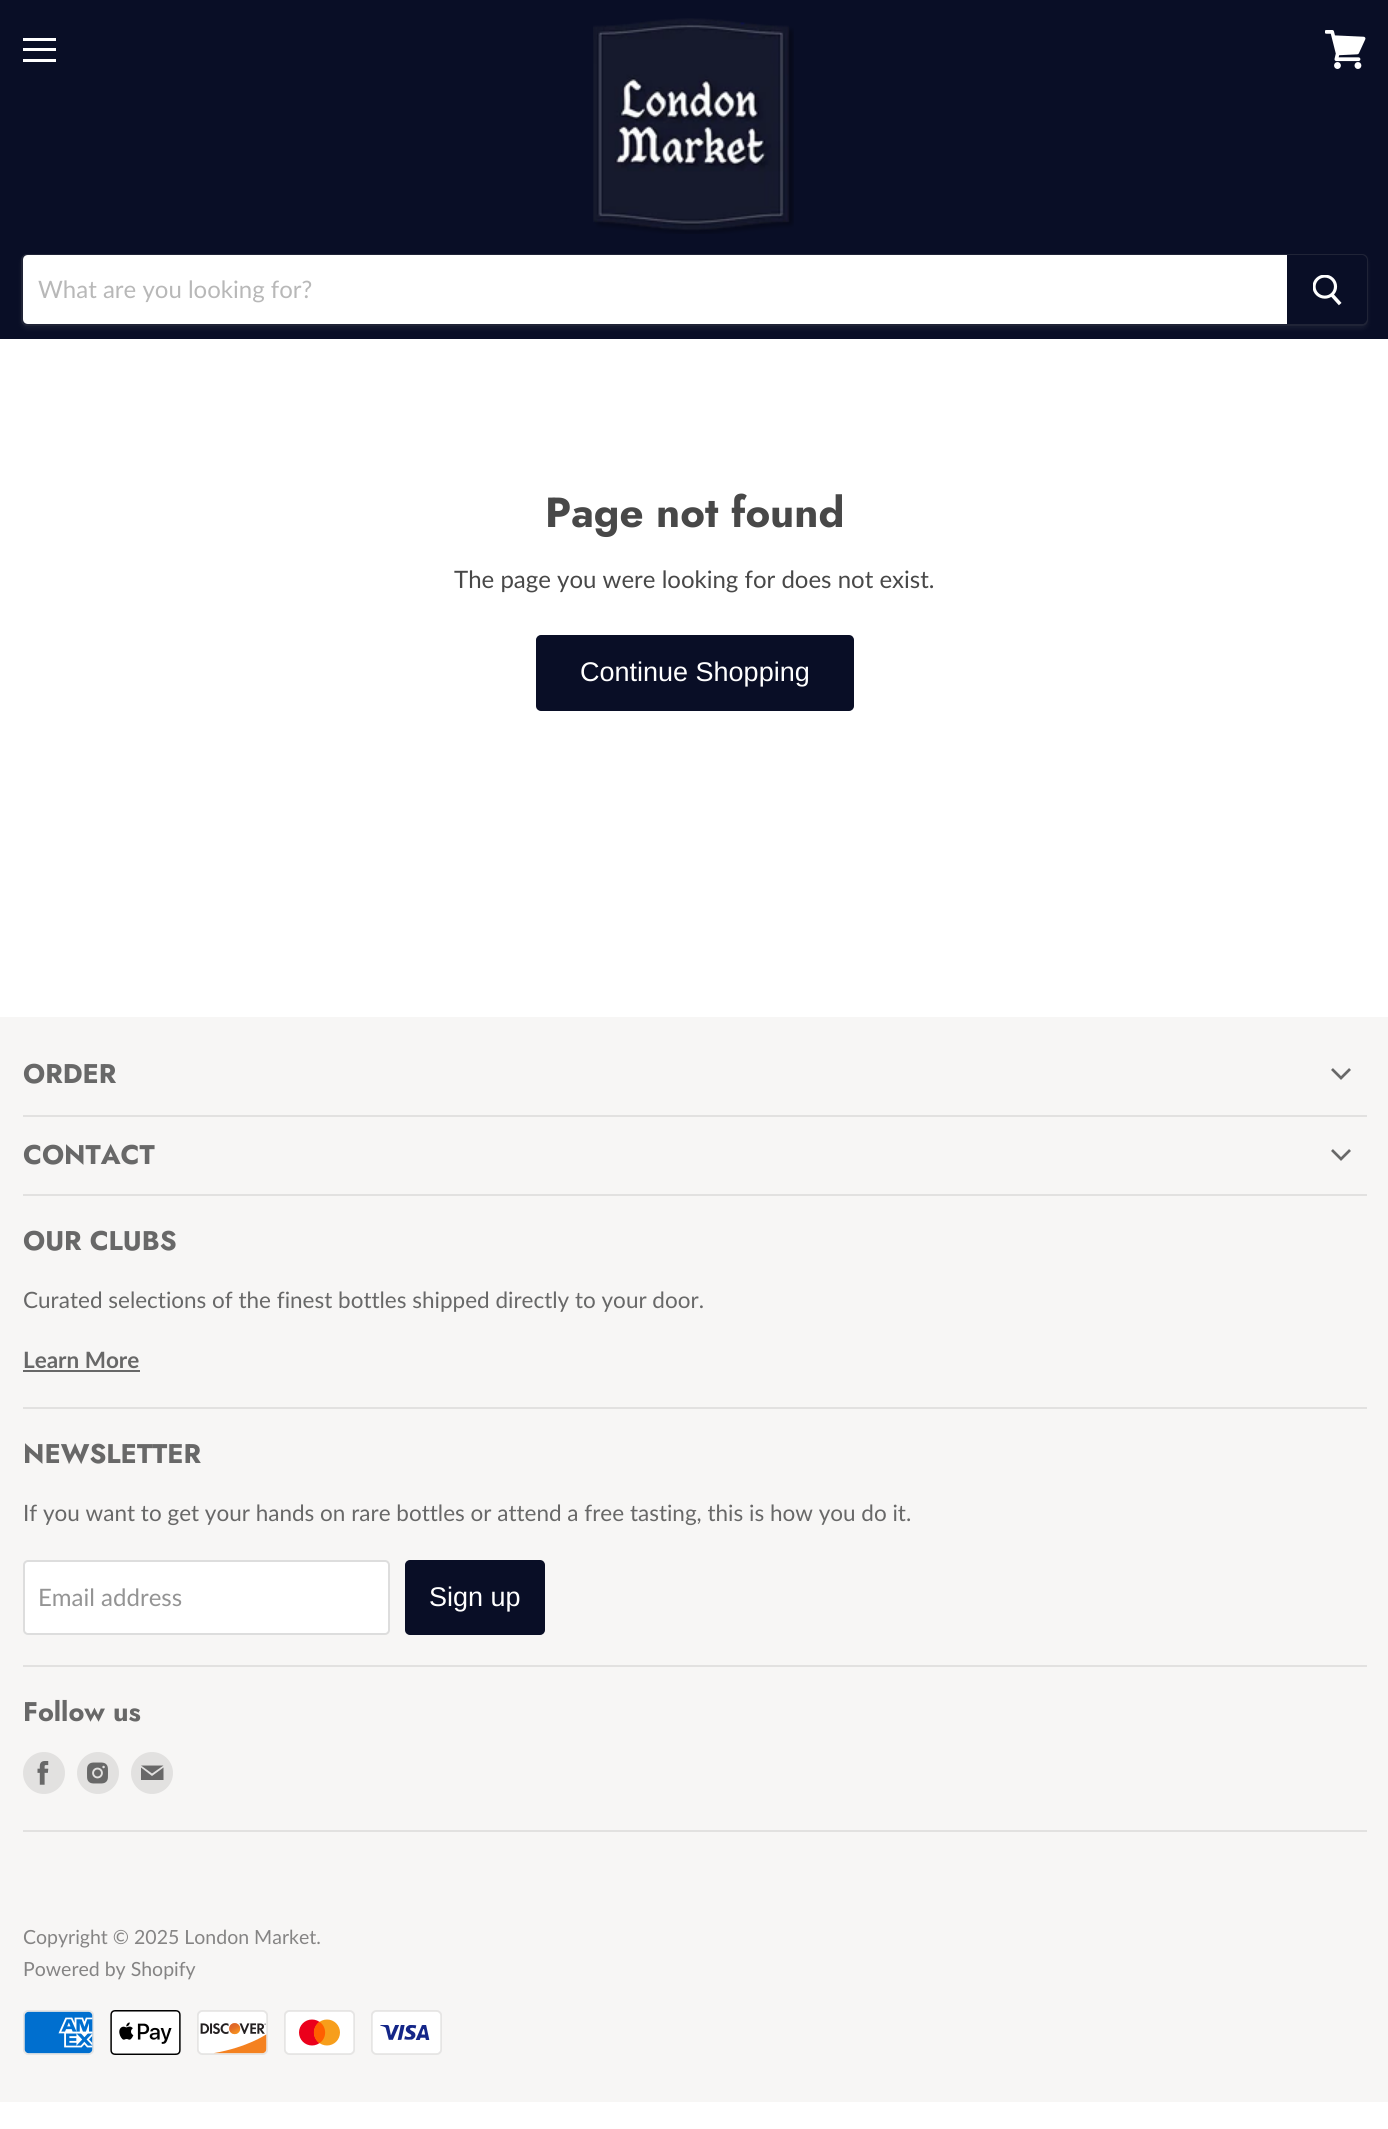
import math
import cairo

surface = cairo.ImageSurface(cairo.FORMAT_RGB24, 1388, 2129)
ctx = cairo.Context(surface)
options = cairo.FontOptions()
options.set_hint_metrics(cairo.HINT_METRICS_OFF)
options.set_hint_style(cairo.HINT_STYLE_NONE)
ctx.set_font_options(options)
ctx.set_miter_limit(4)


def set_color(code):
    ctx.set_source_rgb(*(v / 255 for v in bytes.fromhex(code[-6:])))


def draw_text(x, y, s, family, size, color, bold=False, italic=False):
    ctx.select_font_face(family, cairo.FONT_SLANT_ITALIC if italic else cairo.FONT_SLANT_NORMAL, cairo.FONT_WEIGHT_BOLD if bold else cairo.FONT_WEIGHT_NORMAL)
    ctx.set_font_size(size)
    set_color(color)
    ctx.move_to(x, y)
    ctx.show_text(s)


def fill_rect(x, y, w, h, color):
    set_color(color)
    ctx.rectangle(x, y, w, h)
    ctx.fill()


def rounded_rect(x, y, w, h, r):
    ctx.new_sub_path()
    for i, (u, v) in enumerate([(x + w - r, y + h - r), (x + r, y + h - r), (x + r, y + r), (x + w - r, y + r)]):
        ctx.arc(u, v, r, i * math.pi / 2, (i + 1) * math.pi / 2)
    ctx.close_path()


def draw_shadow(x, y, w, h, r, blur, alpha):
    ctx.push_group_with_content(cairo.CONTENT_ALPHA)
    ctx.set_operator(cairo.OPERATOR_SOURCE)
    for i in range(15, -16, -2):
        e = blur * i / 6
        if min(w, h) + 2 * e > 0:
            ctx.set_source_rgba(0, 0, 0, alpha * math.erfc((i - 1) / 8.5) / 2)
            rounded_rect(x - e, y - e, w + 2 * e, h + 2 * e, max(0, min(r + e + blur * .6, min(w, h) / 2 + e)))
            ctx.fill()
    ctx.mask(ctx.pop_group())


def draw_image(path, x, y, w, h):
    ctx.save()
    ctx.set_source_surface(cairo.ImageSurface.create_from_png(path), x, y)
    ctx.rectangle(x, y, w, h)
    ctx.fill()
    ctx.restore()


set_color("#ffffff")
ctx.paint()
fill_rect(0, 0, 1388, 339, "#090e26")
fill_rect(23, 38, 33, 3, "#ffffff")
fill_rect(23, 48, 33, 3, "#ffffff")
fill_rect(23, 59, 33, 3, "#ffffff")
draw_image("assets/img1.png", 1325, 30, 41, 39)
draw_image("assets/img2.png", 593, 18, 201, 216)
ctx.save()
ctx.set_fill_rule(cairo.FILL_RULE_EVEN_ODD)
ctx.new_path()
ctx.move_to(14, 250)
ctx.line_to(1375, 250)
ctx.line_to(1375, 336)
ctx.line_to(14, 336)
ctx.close_path()
ctx.move_to(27, 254)
ctx.line_to(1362, 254)
ctx.curve_to(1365.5, 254, 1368, 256.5, 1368, 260)
ctx.line_to(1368, 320)
ctx.curve_to(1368, 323.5, 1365.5, 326, 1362, 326)
ctx.line_to(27, 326)
ctx.curve_to(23.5, 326, 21, 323.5, 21, 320)
ctx.line_to(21, 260)
ctx.curve_to(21, 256.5, 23.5, 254, 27, 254)
ctx.close_path()
ctx.clip()
set_color("#7f7f7f")
draw_shadow(21, 257, 1347, 72, 6, 2, 0.11)
ctx.restore()
rounded_rect(22, 255, 1345, 70, 5)
ctx.set_source_rgba(0.498, 0.498, 0.498, 0.2)
ctx.stroke()
set_color("#ffffff")
ctx.new_path()
ctx.move_to(28, 255)
ctx.line_to(1287, 255)
ctx.line_to(1287, 324)
ctx.line_to(28, 324)
ctx.curve_to(25, 324, 23, 322, 23, 319)
ctx.line_to(23, 260)
ctx.curve_to(23, 257, 25, 255, 28, 255)
ctx.close_path()
ctx.fill()
draw_text(38, 298, "What are you looking for?", "Lato", 24, "#b8b8b8")
set_color("#090e26")
ctx.new_path()
ctx.move_to(1288, 256)
ctx.line_to(1362, 256)
ctx.curve_to(1364, 256, 1366, 258, 1366, 260)
ctx.line_to(1366, 319)
ctx.curve_to(1366, 321, 1364, 323, 1362, 323)
ctx.line_to(1288, 323)
ctx.close_path()
ctx.fill_preserve()
ctx.stroke()
draw_image("assets/img3.png", 1313, 275, 29, 31)
draw_text(545, 527, "Page not found", "Jost", 42, "#484848", bold=True)
draw_text(454, 588, "The page you were looking for does not exist.", "Lato", 24, "#484848")
set_color("#090e26")
rounded_rect(537, 636, 316, 74, 4)
ctx.fill_preserve()
ctx.stroke()
draw_text(580, 681, "Continue Shopping", "Liberation Sans", 27, "#ffffff")
fill_rect(0, 1017, 1388, 1085, "#f7f6f5")
fill_rect(23, 1115, 1344, 2, "#e2e1e0")
draw_text(23, 1083, "ORDER", "Jost", 27, "#686868", bold=True)
draw_image("assets/img4.png", 1331, 1068, 20, 12)
fill_rect(23, 1194, 1344, 2, "#e2e1e0")
draw_text(23, 1164, "CONTACT", "Jost", 27, "#686868", bold=True)
draw_image("assets/img4.png", 1331, 1149, 20, 12)
fill_rect(23, 1407, 1344, 2, "#e2e1e0")
draw_text(23, 1250, "OUR CLUBS", "Jost", 27, "#686868", bold=True)
draw_text(23, 1308, "Curated selections of the finest bottles shipped directly to your door.", "Lato", 22.5, "#686868")
draw_text(23, 1368, "Learn More", "Lato", 22.5, "#686868", bold=True)
fill_rect(23, 1370, 117, 2, "#686868")
fill_rect(23, 1665, 1344, 2, "#e2e1e0")
draw_text(23, 1463, "NEWSLETTER", "Jost", 27, "#686868", bold=True)
draw_text(23, 1521, "If you want to get your hands on rare bottles or attend a free tasting, this is how you do it.", "Lato", 22.5, "#686868")
set_color("#ffffff")
rounded_rect(24, 1561, 365, 73, 4)
ctx.fill_preserve()
set_color("#dddddd")
ctx.stroke()
draw_text(38, 1606, "Email address", "Lato", 24, "#949494")
set_color("#090e26")
rounded_rect(406, 1561, 138, 73, 4)
ctx.fill_preserve()
ctx.stroke()
draw_text(429, 1606, "Sign up", "Liberation Sans", 27, "#ffffff")
fill_rect(23, 1830, 1344, 2, "#e2e1e0")
draw_text(23, 1721, "Follow us", "Jost", 27, "#686868", bold=True)
set_color("#e2e1e0")
ctx.new_path()
ctx.arc(44, 1773, 21, 0, 2 * math.pi)
ctx.fill()
draw_image("assets/img5.png", 37, 1761, 12, 24)
ctx.arc(98, 1773, 21, 0, 2 * math.pi)
ctx.fill()
draw_image("assets/img6.png", 87, 1762, 21, 22)
ctx.arc(152, 1773, 21, 0, 2 * math.pi)
ctx.fill()
set_color("#686868")
ctx.set_fill_rule(cairo.FILL_RULE_EVEN_ODD)
ctx.new_path()
ctx.move_to(163.5, 1765.5)
ctx.line_to(141, 1765.5)
ctx.line_to(152, 1773.5)
ctx.close_path()
ctx.move_to(152, 1776)
ctx.line_to(141, 1767.5)
ctx.line_to(141, 1780)
ctx.line_to(163.5, 1780)
ctx.line_to(163.5, 1767.5)
ctx.close_path()
ctx.fill()
draw_text(23, 1944, "Copyright © 2025 London Market.", "Lato", 19.5, "#858484")
draw_text(23, 1976, "Powered by Shopify", "Lato", 19.5, "#858484")
draw_image("assets/img7.png", 23, 2010, 71, 45)
draw_image("assets/img8.png", 110, 2010, 71, 45)
draw_image("assets/img9.png", 197, 2010, 71, 45)
draw_image("assets/img10.png", 284, 2010, 71, 45)
draw_image("assets/img11.png", 371, 2010, 71, 45)
surface.write_to_png("output.png")
